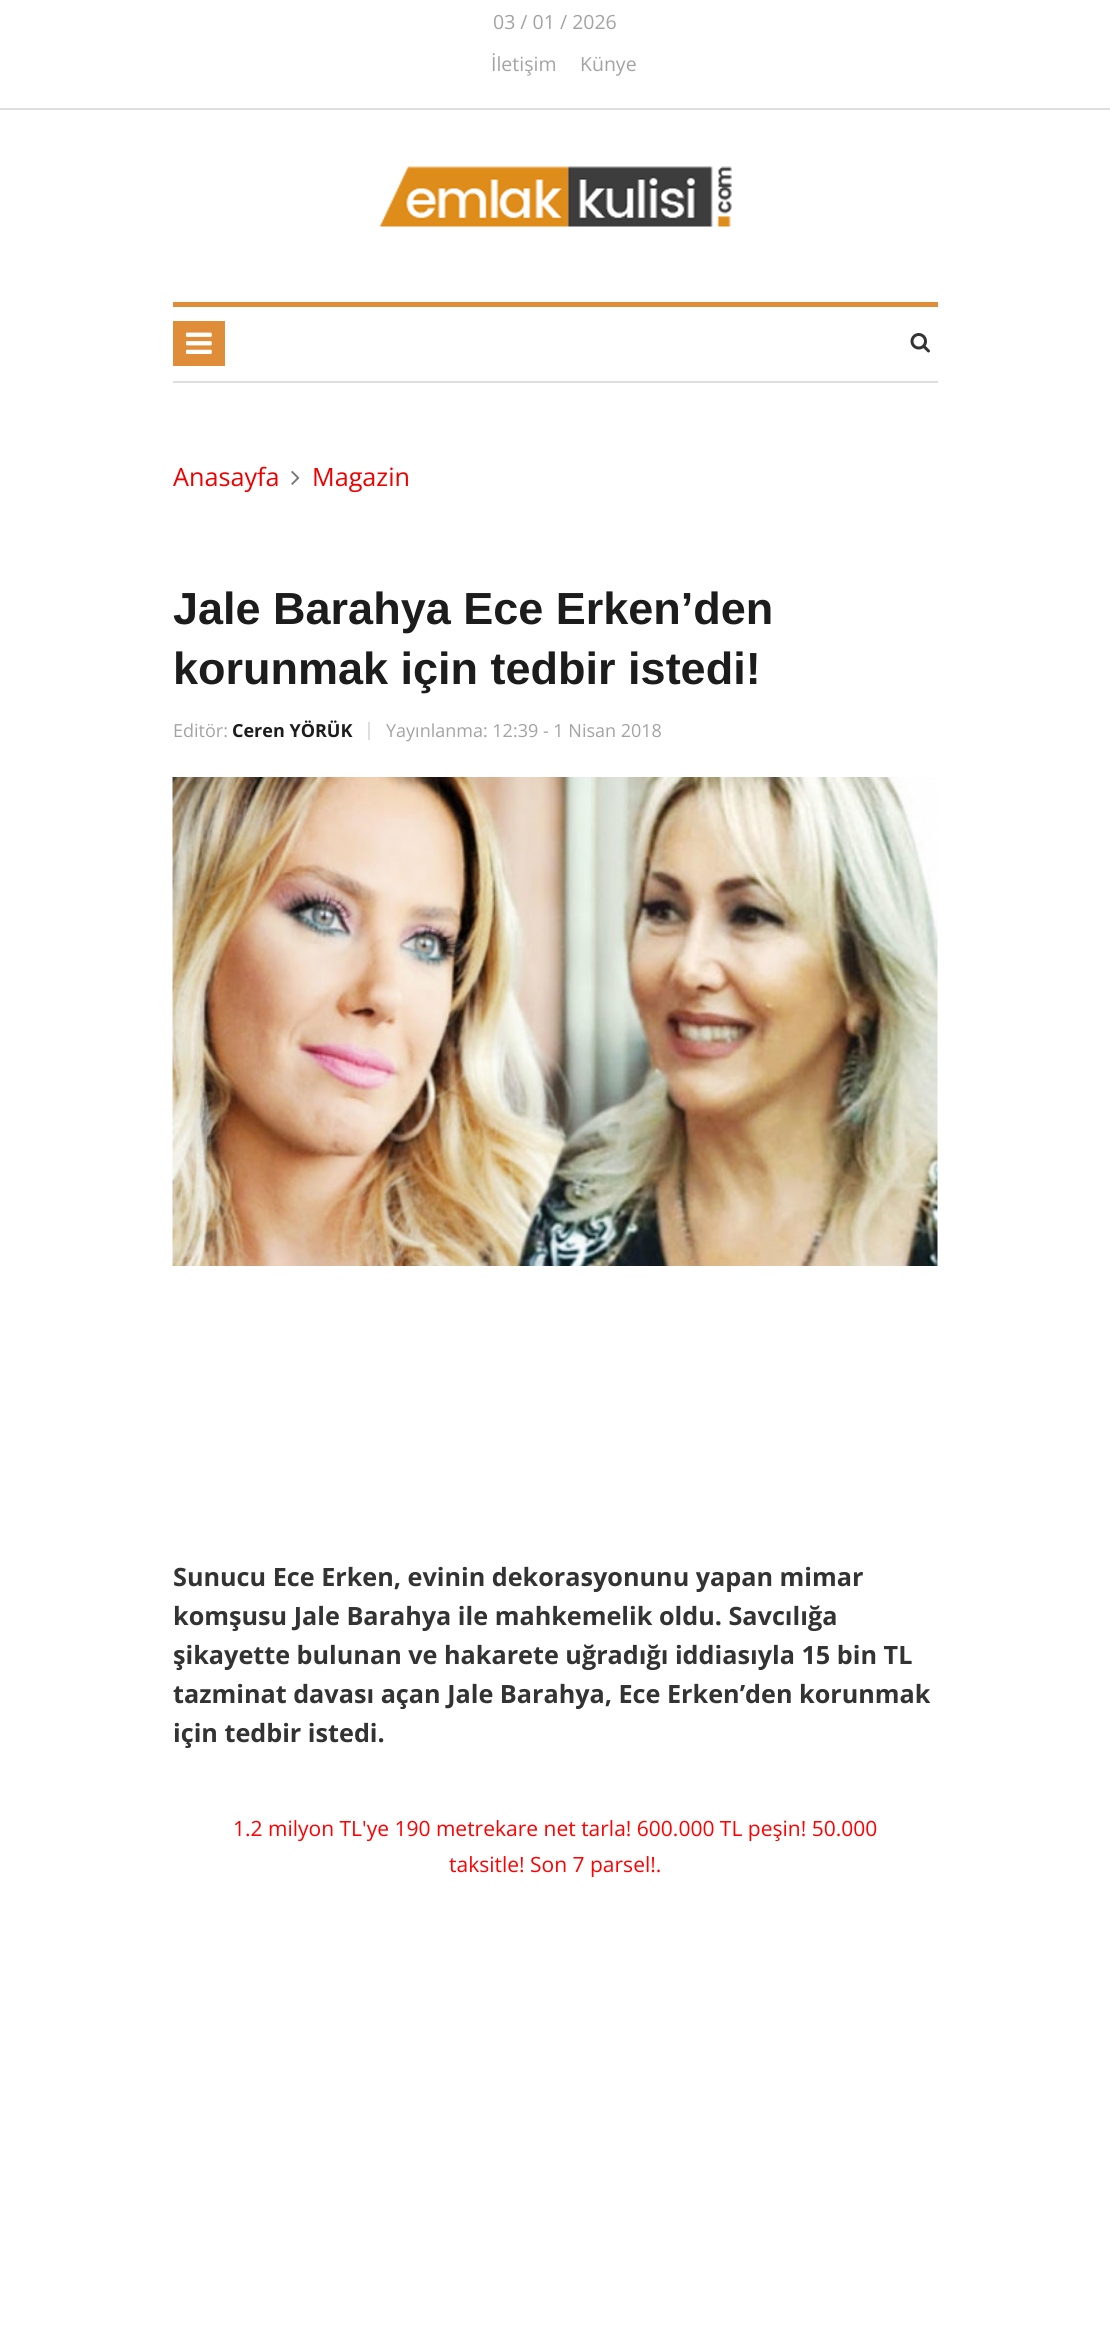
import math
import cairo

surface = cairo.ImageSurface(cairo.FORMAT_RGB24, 1110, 2352)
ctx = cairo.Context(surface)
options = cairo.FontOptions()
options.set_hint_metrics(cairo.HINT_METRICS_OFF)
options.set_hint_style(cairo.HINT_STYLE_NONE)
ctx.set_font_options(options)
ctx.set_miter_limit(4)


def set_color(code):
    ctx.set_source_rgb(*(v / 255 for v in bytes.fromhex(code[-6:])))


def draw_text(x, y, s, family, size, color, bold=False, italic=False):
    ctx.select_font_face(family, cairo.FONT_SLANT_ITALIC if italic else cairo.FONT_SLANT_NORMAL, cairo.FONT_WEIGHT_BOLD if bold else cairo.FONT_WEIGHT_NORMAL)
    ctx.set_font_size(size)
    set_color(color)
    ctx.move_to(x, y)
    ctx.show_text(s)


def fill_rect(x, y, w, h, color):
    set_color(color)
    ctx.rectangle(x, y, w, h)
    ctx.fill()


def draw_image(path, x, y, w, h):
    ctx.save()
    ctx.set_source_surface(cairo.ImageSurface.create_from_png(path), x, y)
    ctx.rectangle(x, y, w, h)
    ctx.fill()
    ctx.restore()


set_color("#ffffff")
ctx.paint()
fill_rect(0, 108, 1110, 2, "#dedede")
draw_text(493, 29, "03 / 01 / 2026", "Open Sans", 19.5, "#a3a3a3")
draw_text(491, 71, "İletişim", "Open Sans", 19.5, "#a3a3a3")
draw_text(580, 71, "Künye", "Open Sans", 19.5, "#a3a3a3")
draw_image("assets/img1.png", 379, 166, 353, 61)
fill_rect(173, 302, 765, 5, "#df8d38")
fill_rect(173, 381, 765, 2, "#dedede")
fill_rect(173, 321, 52, 45, "#df8d38")
draw_image("assets/img2.png", 186, 332, 26, 22)
draw_image("assets/img3.png", 910, 333, 20, 20)
draw_text(173, 486, "Anasayfa", "Open Sans", 25.2, "#ec0000")
draw_image("assets/img4.png", 291, 470, 9, 15)
draw_text(312, 486, "Magazin", "Open Sans", 25.2, "#ec0000")
draw_text(173, 624, "Jale Barahya Ece Erken’den", "Liberation Sans", 45, "#1c1c1c", bold=True)
draw_text(173, 684, "korunmak için tedbir istedi!", "Liberation Sans", 45, "#1c1c1c", bold=True)
fill_rect(368, 722, 2, 18, "#dedede")
draw_text(173, 737, "Editör:", "Open Sans", 18, "#a3a3a3")
draw_text(232, 737, "Ceren YÖRÜK", "Open Sans", 18, "#1c1c1c", bold=True)
draw_text(386, 737, "Yayınlanma: 12:39 - 1 Nisan 2018", "Open Sans", 18, "#a3a3a3")
draw_image("assets/img5.png", 172, 777, 766, 489)
draw_text(173, 1586, "Sunucu Ece Erken, evinin dekorasyonunu yapan mimar", "Open Sans", 25.2, "#333333", bold=True)
draw_text(173, 1625, "komşusu Jale Barahya ile mahkemelik oldu. Savcılığa", "Open Sans", 25.2, "#333333", bold=True)
draw_text(173, 1664, "şikayette bulunan ve hakarete uğradığı iddiasıyla 15 bin TL", "Open Sans", 25.2, "#333333", bold=True)
draw_text(173, 1703, "tazminat davası açan Jale Barahya, Ece Erken’den korunmak", "Open Sans", 25.2, "#333333", bold=True)
draw_text(173, 1742, "için tedbir istedi.", "Open Sans", 25.2, "#333333", bold=True)
draw_text(233, 1836, "1.2 milyon TL'ye 190 metrekare net tarla! 600.000 TL peşin! 50.000", "Open Sans", 21, "#ff0000")
draw_text(449, 1872, "taksitle! Son 7 parsel!.", "Open Sans", 21, "#ff0000")
surface.write_to_png("output.png")
